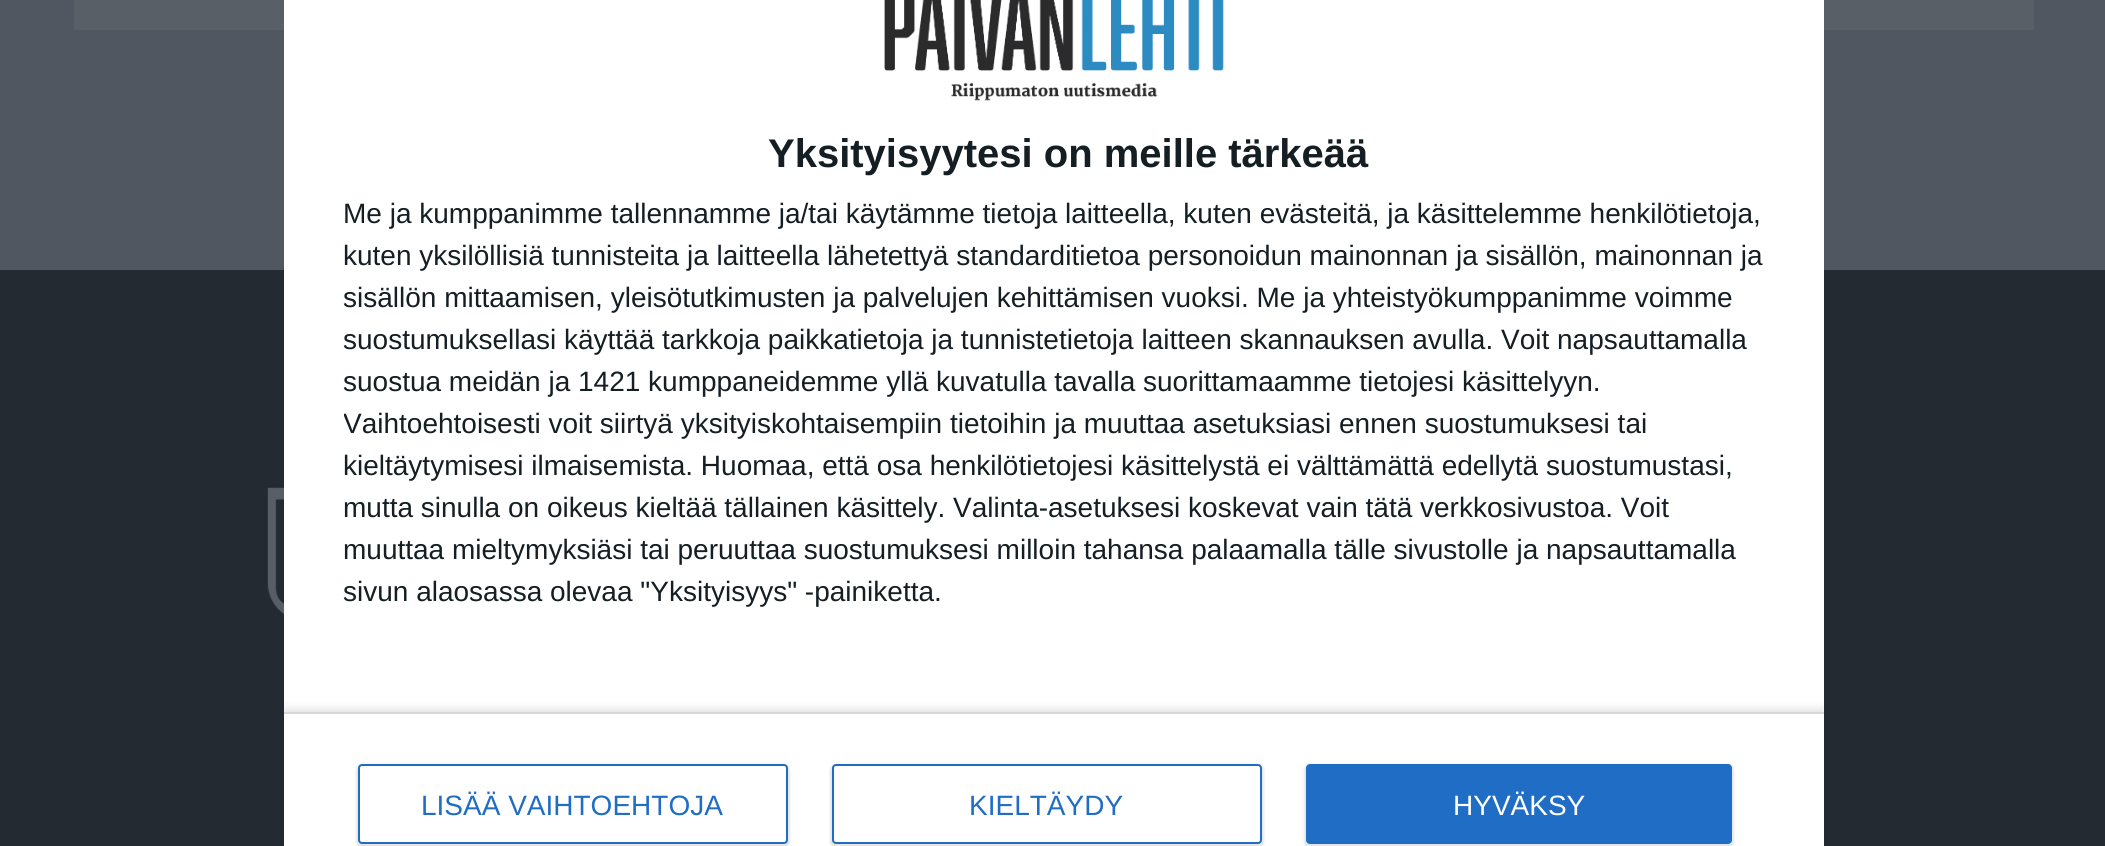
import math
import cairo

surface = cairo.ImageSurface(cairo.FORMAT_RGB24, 2105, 846)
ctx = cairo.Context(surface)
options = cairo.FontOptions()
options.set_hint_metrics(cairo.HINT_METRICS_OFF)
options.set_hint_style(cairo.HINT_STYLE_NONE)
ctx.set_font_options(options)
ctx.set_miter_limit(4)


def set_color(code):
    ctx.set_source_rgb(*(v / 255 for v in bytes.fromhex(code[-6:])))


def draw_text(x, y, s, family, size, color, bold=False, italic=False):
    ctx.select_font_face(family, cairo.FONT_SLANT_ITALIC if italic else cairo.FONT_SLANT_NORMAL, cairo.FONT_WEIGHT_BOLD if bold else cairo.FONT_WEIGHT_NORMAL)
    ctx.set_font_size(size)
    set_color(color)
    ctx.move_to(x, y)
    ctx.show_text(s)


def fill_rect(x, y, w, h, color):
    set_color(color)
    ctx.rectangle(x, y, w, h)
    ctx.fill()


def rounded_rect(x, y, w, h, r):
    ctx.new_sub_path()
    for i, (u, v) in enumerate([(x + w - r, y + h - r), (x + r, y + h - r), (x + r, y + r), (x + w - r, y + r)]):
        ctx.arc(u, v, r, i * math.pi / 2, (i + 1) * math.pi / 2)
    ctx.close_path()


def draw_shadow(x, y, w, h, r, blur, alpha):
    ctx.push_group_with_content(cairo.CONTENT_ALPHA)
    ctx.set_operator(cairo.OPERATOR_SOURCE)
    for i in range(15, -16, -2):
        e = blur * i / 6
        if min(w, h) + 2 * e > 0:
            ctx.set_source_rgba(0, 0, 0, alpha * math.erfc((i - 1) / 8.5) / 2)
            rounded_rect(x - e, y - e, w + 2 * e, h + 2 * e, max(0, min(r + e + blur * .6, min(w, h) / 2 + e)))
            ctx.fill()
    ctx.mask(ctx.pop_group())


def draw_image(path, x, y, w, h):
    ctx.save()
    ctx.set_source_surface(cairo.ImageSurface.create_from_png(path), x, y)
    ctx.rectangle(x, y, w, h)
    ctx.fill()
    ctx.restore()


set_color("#505760")
ctx.paint()
fill_rect(74, 0, 1960, 30, "#595f67")
fill_rect(0, 270, 2105, 576, "#242a32")
draw_image("assets/img1.png", 267, 487, 17, 128)
fill_rect(284, 0, 1540, 846, "#ffffff")
draw_image("assets/img2.png", 884, 0, 340, 101)
draw_text(768, 167, "Yksityisyytesi on meille tärkeää", "Liberation Sans", 40, "#141e23", bold=True)
draw_text(343, 223, "Me ja kumppanimme tallennamme ja/tai käytämme tietoja laitteella, kuten evästeitä, ja käsittelemme henkilötietoja,", "Liberation Sans", 28, "#141e23")
draw_text(343, 265, "kuten yksilöllisiä tunnisteita ja laitteella lähetettyä standarditietoa personoidun mainonnan ja sisällön, mainonnan ja", "Liberation Sans", 28, "#141e23")
draw_text(343, 307, "sisällön mittaamisen, yleisötutkimusten ja palvelujen kehittämisen vuoksi. Me ja yhteistyökumppanimme voimme", "Liberation Sans", 28, "#141e23")
draw_text(343, 349, "suostumuksellasi käyttää tarkkoja paikkatietoja ja tunnistetietoja laitteen skannauksen avulla. Voit napsauttamalla", "Liberation Sans", 28, "#141e23")
draw_text(343, 391, "suostua meidän ja 1421 kumppaneidemme yllä kuvatulla tavalla suorittamaamme tietojesi käsittelyyn.", "Liberation Sans", 28, "#141e23")
ctx.save()
ctx.rectangle(344, 192, 1420, 420)
ctx.clip()
draw_text(343, 433, "Vaihtoehtoisesti voit siirtyä yksityiskohtaisempiin tietoihin ja muuttaa asetuksiasi ennen suostumuksesi tai", "Liberation Sans", 28, "#141e23")
ctx.restore()
draw_text(343, 475, "kieltäytymisesi ilmaisemista. Huomaa, että osa henkilötietojesi käsittelystä ei välttämättä edellytä suostumustasi,", "Liberation Sans", 28, "#141e23")
draw_text(343, 517, "mutta sinulla on oikeus kieltää tällainen käsittely. Valinta-asetuksesi koskevat vain tätä verkkosivustoa. Voit", "Liberation Sans", 28, "#141e23")
draw_text(343, 559, "muuttaa mieltymyksiäsi tai peruuttaa suostumuksesi milloin tahansa palaamalla tälle sivustolle ja napsauttamalla", "Liberation Sans", 28, "#141e23")
draw_text(343, 601, "sivun alaosassa olevaa \"Yksityisyys\" -painiketta.", "Liberation Sans", 28, "#141e23")
ctx.save()
ctx.set_fill_rule(cairo.FILL_RULE_EVEN_ODD)
ctx.new_path()
ctx.move_to(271, 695)
ctx.line_to(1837, 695)
ctx.line_to(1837, 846)
ctx.line_to(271, 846)
ctx.close_path()
ctx.move_to(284, 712)
ctx.line_to(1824, 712)
ctx.line_to(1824, 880)
ctx.line_to(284, 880)
ctx.close_path()
ctx.clip()
set_color("#000000")
draw_shadow(284, 708, 1540, 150, 0, 4, 0.1)
ctx.restore()
fill_rect(284, 712, 1540, 2, "#d8d8d8")
set_color("#000000")
draw_shadow(356, 764, 434, 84, 6, 1, 0.1)
set_color("#ffffff")
rounded_rect(359, 765, 428, 78, 3)
ctx.fill_preserve()
set_color("#206dc5")
ctx.stroke()
draw_text(421, 815, "LISÄÄ VAIHTOEHTOJA", "Liberation Sans", 28, "#206dc5")
set_color("#000000")
draw_shadow(830, 764, 434, 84, 6, 1, 0.1)
set_color("#ffffff")
rounded_rect(833, 765, 428, 78, 3)
ctx.fill_preserve()
set_color("#206dc5")
ctx.stroke()
draw_text(969, 815, "KIELTÄYDY", "Liberation Sans", 28, "#206dc5")
set_color("#000000")
draw_shadow(1304, 764, 430, 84, 6, 1, 0.1)
set_color("#206dc5")
rounded_rect(1306, 764, 426, 80, 4)
ctx.fill()
draw_text(1453, 815, "HYVÄKSY", "Liberation Sans", 28, "#ffffff")
surface.write_to_png("output.png")
